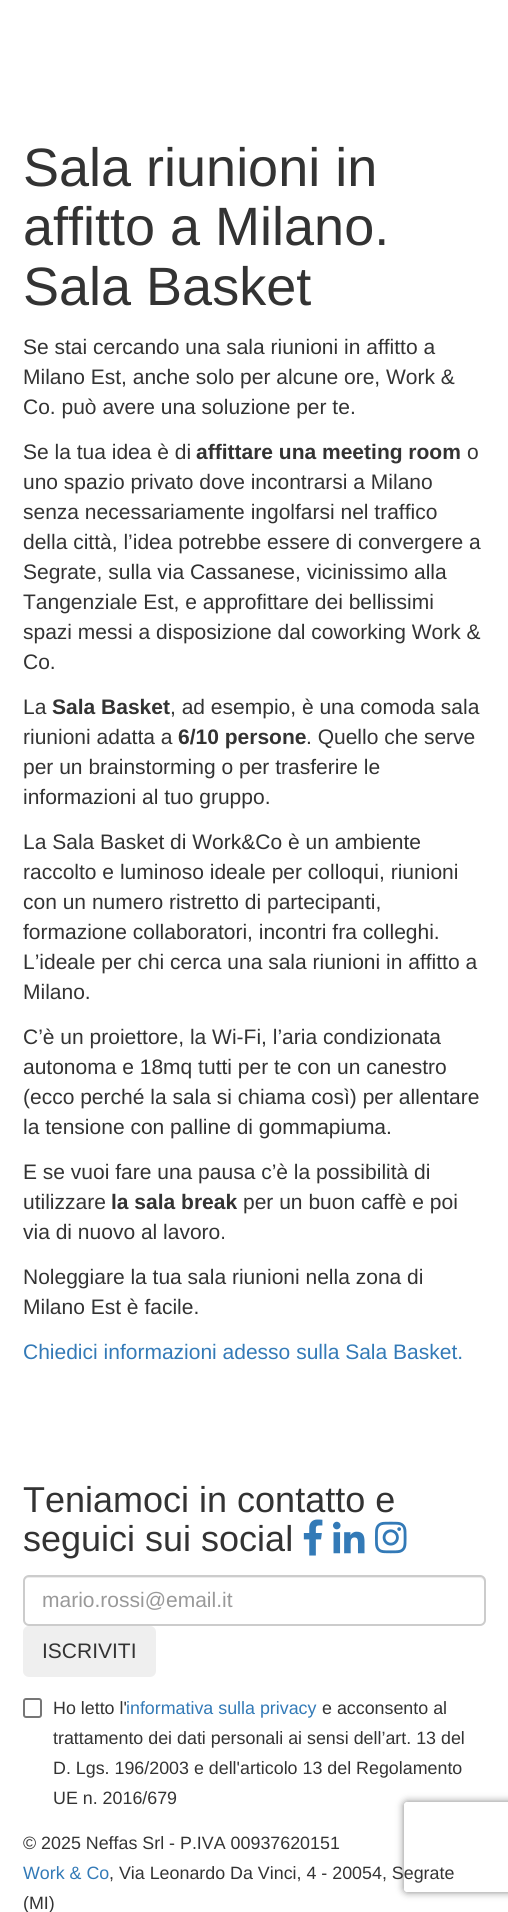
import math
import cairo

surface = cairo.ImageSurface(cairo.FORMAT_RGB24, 508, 1912)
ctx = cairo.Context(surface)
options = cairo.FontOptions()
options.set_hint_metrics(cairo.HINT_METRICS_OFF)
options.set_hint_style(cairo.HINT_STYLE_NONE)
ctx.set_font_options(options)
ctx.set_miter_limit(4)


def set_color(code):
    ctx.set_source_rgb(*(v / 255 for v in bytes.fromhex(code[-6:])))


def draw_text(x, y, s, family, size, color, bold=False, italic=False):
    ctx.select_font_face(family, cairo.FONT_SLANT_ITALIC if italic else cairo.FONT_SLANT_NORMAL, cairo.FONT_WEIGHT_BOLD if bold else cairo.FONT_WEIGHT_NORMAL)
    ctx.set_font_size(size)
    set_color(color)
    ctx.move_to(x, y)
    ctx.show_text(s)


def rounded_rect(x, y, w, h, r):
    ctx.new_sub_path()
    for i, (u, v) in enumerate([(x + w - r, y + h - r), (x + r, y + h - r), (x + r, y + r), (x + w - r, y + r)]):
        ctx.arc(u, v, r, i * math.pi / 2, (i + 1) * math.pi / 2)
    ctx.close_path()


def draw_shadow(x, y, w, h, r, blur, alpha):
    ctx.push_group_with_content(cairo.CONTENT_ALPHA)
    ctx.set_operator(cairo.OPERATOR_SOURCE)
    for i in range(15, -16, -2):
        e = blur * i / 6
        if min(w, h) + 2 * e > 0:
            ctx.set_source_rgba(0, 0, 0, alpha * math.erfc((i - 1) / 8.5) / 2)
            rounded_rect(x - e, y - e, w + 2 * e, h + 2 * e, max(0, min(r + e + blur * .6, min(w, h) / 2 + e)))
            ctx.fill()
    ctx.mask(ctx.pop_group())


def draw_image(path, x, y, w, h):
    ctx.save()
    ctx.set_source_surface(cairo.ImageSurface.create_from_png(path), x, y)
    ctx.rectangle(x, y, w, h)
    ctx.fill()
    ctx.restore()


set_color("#ffffff")
ctx.paint()
draw_text(23, 186, "Sala riunioni in", "Liberation Sans", 54, "#333333")
draw_text(23, 245, "affitto a Milano.", "Liberation Sans", 54, "#333333")
draw_text(23, 305, "Sala Basket", "Liberation Sans", 54, "#333333")
draw_text(23, 354, "Se stai cercando una sala riunioni in affitto a", "Liberation Sans", 21, "#333333")
draw_text(23, 384, "Milano Est, anche solo per alcune ore, Work &", "Liberation Sans", 21, "#333333")
draw_text(23, 414, "Co. può avere una soluzione per te.", "Liberation Sans", 21, "#333333")
draw_text(23, 459, "Se la tua idea è di", "Liberation Sans", 21, "#333333")
draw_text(196, 459, "affittare una meeting room", "Liberation Sans", 21, "#333333", bold=True)
draw_text(467, 459, "o", "Liberation Sans", 21, "#333333")
draw_text(23, 489, "uno spazio privato dove incontrarsi a Milano", "Liberation Sans", 21, "#333333")
draw_text(23, 519, "senza necessariamente ingolfarsi nel traffico", "Liberation Sans", 21, "#333333")
draw_text(23, 549, "della città, l’idea potrebbe essere di convergere a", "Liberation Sans", 21, "#333333")
draw_text(23, 579, "Segrate, sulla via Cassanese, vicinissimo alla", "Liberation Sans", 21, "#333333")
draw_text(23, 609, "Tangenziale Est, e approfittare dei bellissimi", "Liberation Sans", 21, "#333333")
draw_text(23, 639, "spazi messi a disposizione dal coworking Work &", "Liberation Sans", 21, "#333333")
draw_text(23, 669, "Co.", "Liberation Sans", 21, "#333333")
draw_text(23, 714, "La", "Liberation Sans", 21, "#333333")
draw_text(52, 714, "Sala Basket", "Liberation Sans", 21, "#333333", bold=True)
draw_text(170, 714, ", ad esempio, è una comoda sala", "Liberation Sans", 21, "#333333")
draw_text(23, 744, "riunioni adatta a", "Liberation Sans", 21, "#333333")
draw_text(178, 744, "6/10 persone", "Liberation Sans", 21, "#333333", bold=True)
draw_text(306, 744, ". Quello che serve", "Liberation Sans", 21, "#333333")
draw_text(23, 774, "per un brainstorming o per trasferire le", "Liberation Sans", 21, "#333333")
draw_text(23, 804, "informazioni al tuo gruppo.", "Liberation Sans", 21, "#333333")
draw_text(23, 849, "La Sala Basket di Work&Co è un ambiente", "Liberation Sans", 21, "#333333")
draw_text(23, 879, "raccolto e luminoso ideale per colloqui, riunioni", "Liberation Sans", 21, "#333333")
draw_text(23, 909, "con un numero ristretto di partecipanti,", "Liberation Sans", 21, "#333333")
draw_text(23, 939, "formazione collaboratori, incontri fra colleghi.", "Liberation Sans", 21, "#333333")
draw_text(23, 969, "L’ideale per chi cerca una sala riunioni in affitto a", "Liberation Sans", 21, "#333333")
draw_text(23, 999, "Milano.", "Liberation Sans", 21, "#333333")
draw_text(23, 1044, "C’è un proiettore, la Wi-Fi, l’aria condizionata", "Liberation Sans", 21, "#333333")
draw_text(23, 1074, "autonoma e 18mq tutti per te con un canestro", "Liberation Sans", 21, "#333333")
draw_text(23, 1104, "(ecco perché la sala si chiama così) per allentare", "Liberation Sans", 21, "#333333")
draw_text(23, 1134, "la tensione con palline di gommapiuma.", "Liberation Sans", 21, "#333333")
draw_text(23, 1179, "E se vuoi fare una pausa c’è la possibilità di", "Liberation Sans", 21, "#333333")
draw_text(23, 1209, "utilizzare", "Liberation Sans", 21, "#333333")
draw_text(111, 1209, "la sala break", "Liberation Sans", 21, "#333333", bold=True)
draw_text(243, 1209, "per un buon caffè e poi", "Liberation Sans", 21, "#333333")
draw_text(23, 1239, "via di nuovo al lavoro.", "Liberation Sans", 21, "#333333")
draw_text(23, 1284, "Noleggiare la tua sala riunioni nella zona di", "Liberation Sans", 21, "#333333")
draw_text(23, 1314, "Milano Est è facile.", "Liberation Sans", 21, "#333333")
draw_text(23, 1359, "Chiedici informazioni adesso sulla Sala Basket.", "Liberation Sans", 21, "#337ab7")
draw_text(23, 1512, "Teniamoci in contatto e", "Liberation Sans", 36, "#333333")
draw_text(23, 1551, "seguici sui social", "Liberation Sans", 36, "#333333")
draw_image("assets/img1.png", 303, 1519, 20, 37)
draw_image("assets/img2.png", 333, 1521, 32, 33)
draw_image("assets/img3.png", 375, 1521, 32, 33)
set_color("#ececec")
ctx.new_path()
ctx.move_to(28, 1578)
ctx.line_to(480, 1578)
ctx.curve_to(482, 1578, 484, 1580, 484, 1582)
ctx.line_to(484, 1623)
ctx.curve_to(485, 1622, 485, 1621, 485, 1620)
ctx.line_to(485, 1582)
ctx.curve_to(485, 1579, 483, 1577, 480, 1577)
ctx.line_to(29, 1577)
ctx.curve_to(26, 1577, 24, 1579, 24, 1582)
ctx.curve_to(24, 1580, 26, 1578, 28, 1578)
ctx.close_path()
ctx.fill()
rounded_rect(24, 1576, 461, 49, 5)
set_color("#cccccc")
ctx.stroke()
draw_text(42, 1607, "mario.rossi@email.it", "Liberation Sans", 21, "#999999")
set_color("#efefef")
rounded_rect(23, 1626, 133, 51, 6)
ctx.fill()
draw_text(42, 1658, "ISCRIVITI", "Liberation Sans", 21, "#333333")
rounded_rect(24, 1699, 17, 18, 2)
set_color("#767676")
ctx.stroke()
draw_text(53, 1714, "Ho letto l'", "Liberation Sans", 17.85, "#333333")
draw_text(126, 1714, "informativa sulla privacy", "Liberation Sans", 17.85, "#337ab7")
draw_text(322, 1714, "e acconsento al", "Liberation Sans", 17.85, "#333333")
draw_text(53, 1744, "trattamento dei dati personali ai sensi dell’art. 13 del", "Liberation Sans", 17.85, "#333333")
draw_text(53, 1774, "D. Lgs. 196/2003 e dell'articolo 13 del Regolamento", "Liberation Sans", 17.85, "#333333")
draw_text(53, 1804, "UE n. 2016/679", "Liberation Sans", 17.85, "#333333")
ctx.save()
ctx.set_fill_rule(cairo.FILL_RULE_EVEN_ODD)
ctx.new_path()
ctx.move_to(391, 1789)
ctx.line_to(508, 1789)
ctx.line_to(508, 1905)
ctx.line_to(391, 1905)
ctx.close_path()
ctx.move_to(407, 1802)
ctx.line_to(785, 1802)
ctx.curve_to(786.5, 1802, 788, 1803.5, 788, 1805)
ctx.line_to(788, 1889)
ctx.curve_to(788, 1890.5, 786.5, 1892, 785, 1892)
ctx.line_to(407, 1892)
ctx.curve_to(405.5, 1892, 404, 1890.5, 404, 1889)
ctx.line_to(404, 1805)
ctx.curve_to(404, 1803.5, 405.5, 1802, 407, 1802)
ctx.close_path()
ctx.clip()
set_color("#808080")
draw_shadow(404, 1802, 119, 90, 3, 4, 1)
ctx.restore()
draw_text(23, 1849, "© 2025 Neffas Srl - P.IVA 00937620151", "Liberation Sans", 17.85, "#333333")
draw_text(23, 1879, "Work & Co", "Liberation Sans", 17.85, "#337ab7")
draw_text(109, 1879, ", Via Leonardo Da Vinci, 4 - 20054, Segrate", "Liberation Sans", 17.85, "#333333")
draw_text(23, 1909, "(MI)", "Liberation Sans", 17.85, "#333333")
surface.write_to_png("output.png")
